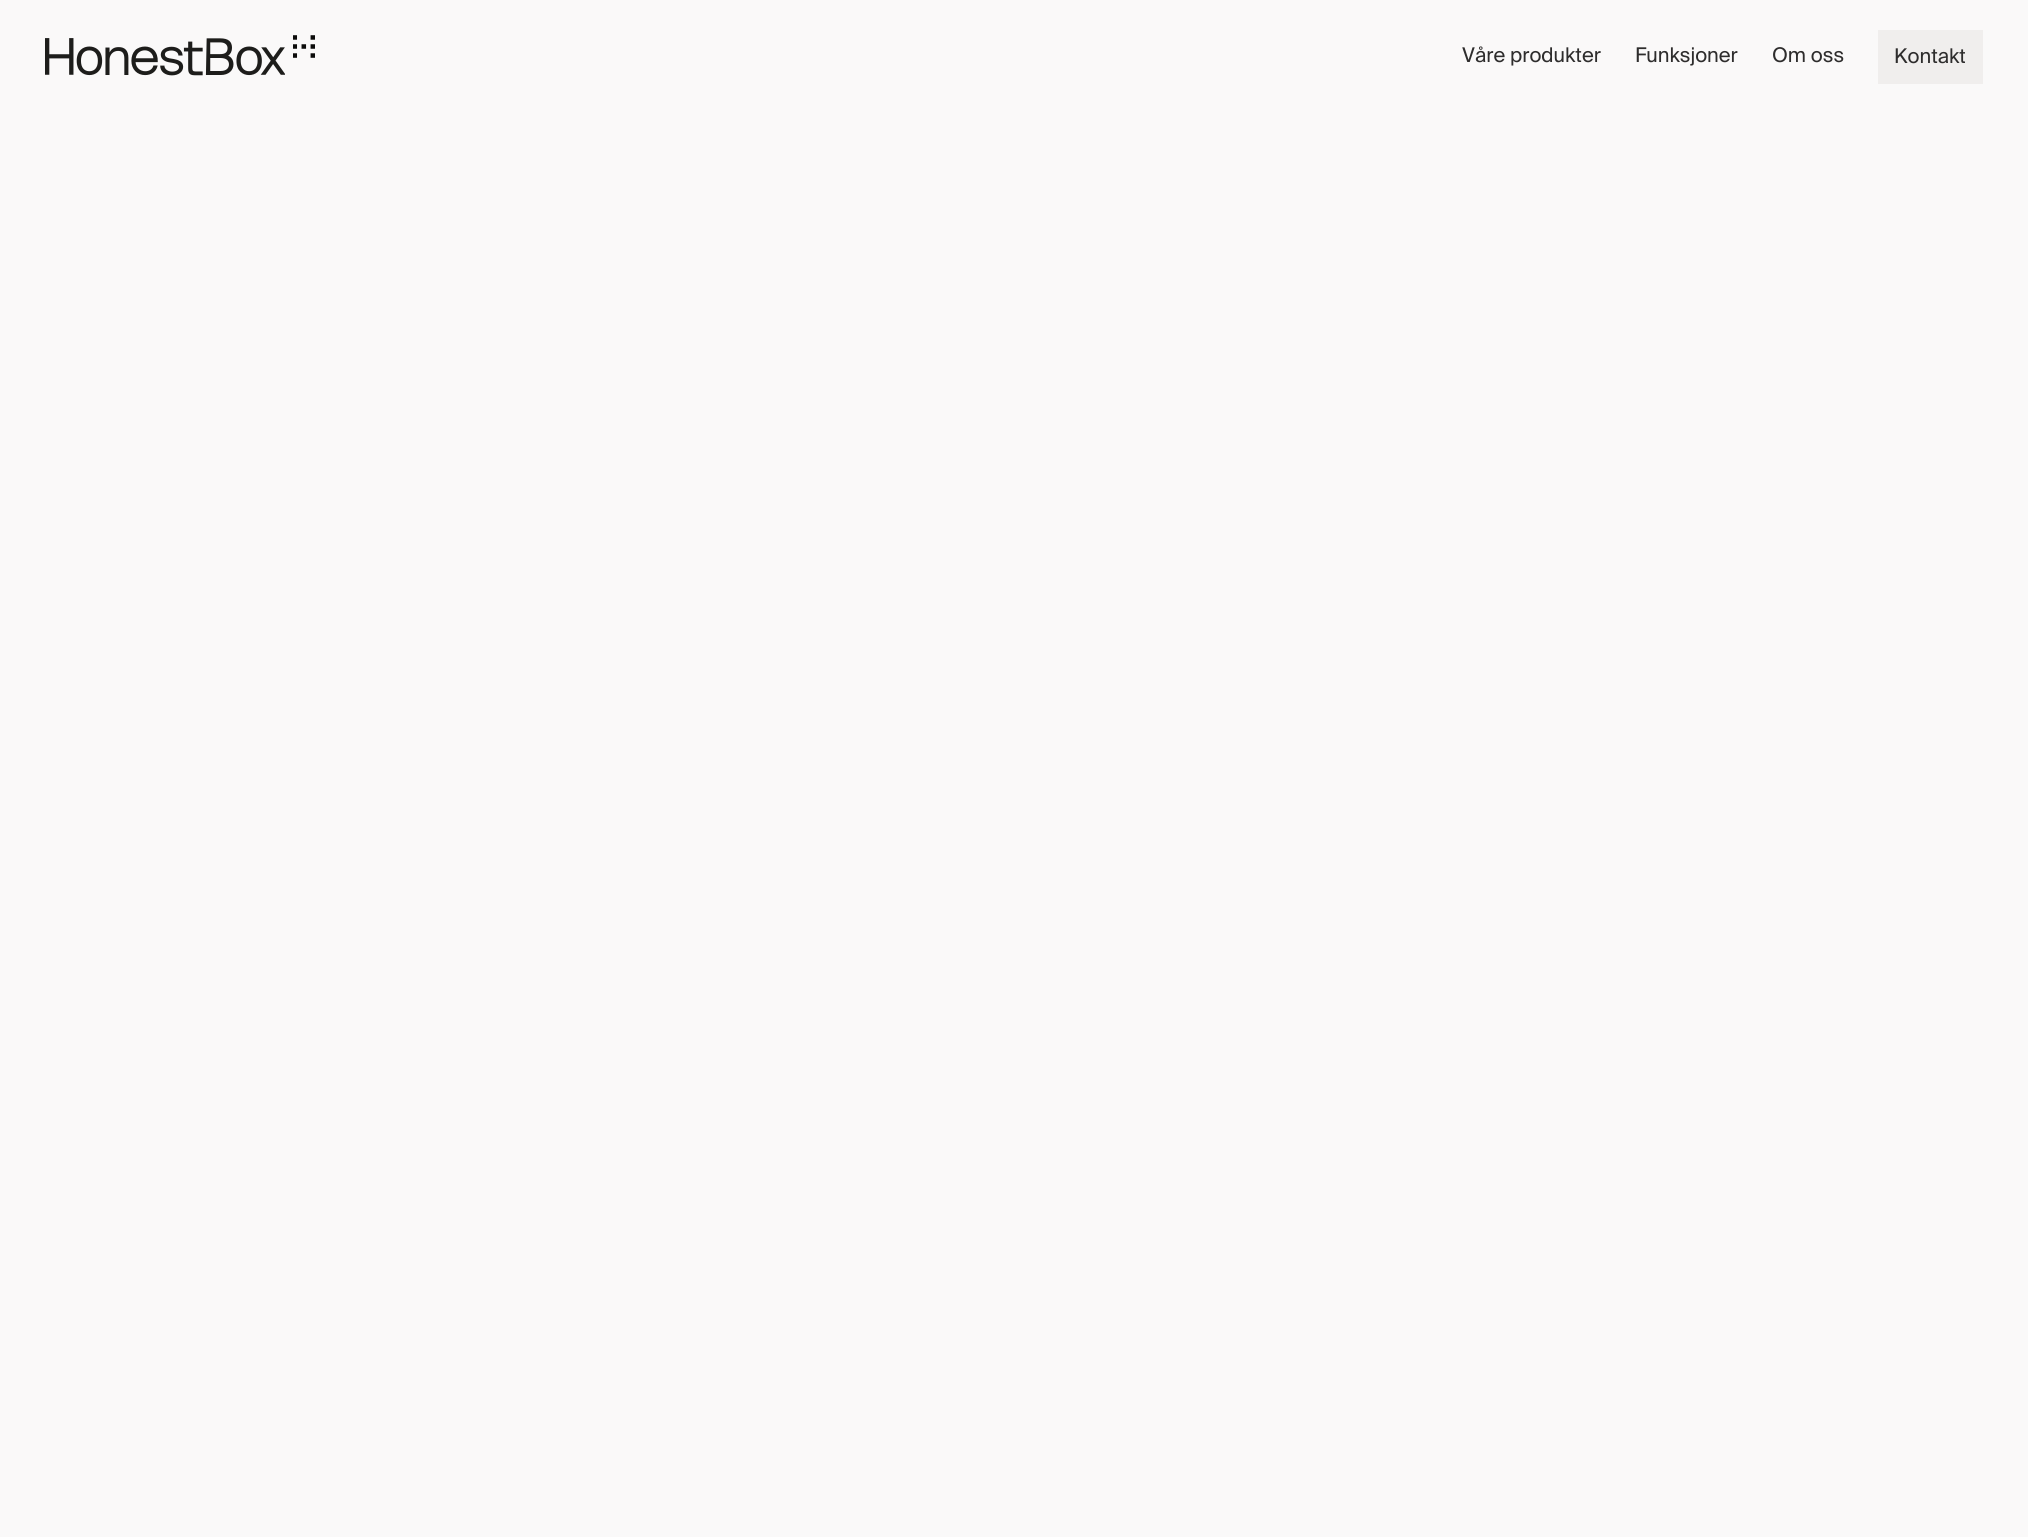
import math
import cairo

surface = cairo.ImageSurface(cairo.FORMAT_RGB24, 2028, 1537)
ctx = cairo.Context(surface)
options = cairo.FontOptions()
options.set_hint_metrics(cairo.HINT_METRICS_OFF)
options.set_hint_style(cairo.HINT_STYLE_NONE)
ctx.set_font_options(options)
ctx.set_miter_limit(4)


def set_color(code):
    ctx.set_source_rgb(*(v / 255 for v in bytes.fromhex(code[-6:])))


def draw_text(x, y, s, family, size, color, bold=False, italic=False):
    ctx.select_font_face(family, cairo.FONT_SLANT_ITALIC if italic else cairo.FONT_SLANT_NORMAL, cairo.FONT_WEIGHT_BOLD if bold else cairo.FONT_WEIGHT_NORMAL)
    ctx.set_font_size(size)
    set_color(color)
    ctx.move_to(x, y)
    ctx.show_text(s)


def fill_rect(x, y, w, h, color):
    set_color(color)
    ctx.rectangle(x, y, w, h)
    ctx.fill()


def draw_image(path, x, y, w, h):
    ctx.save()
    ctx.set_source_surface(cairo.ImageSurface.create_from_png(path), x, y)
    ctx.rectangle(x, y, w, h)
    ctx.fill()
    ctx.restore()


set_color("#faf9f9")
ctx.paint()
draw_image("assets/img1.png", 45, 38, 240, 38)
draw_image("assets/img2.png", 293, 35, 22, 23)
draw_text(1462, 62, "Våre produkter", "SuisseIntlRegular", 20.25, "#2e2d2d")
draw_text(1635, 62, "Funksjoner", "SuisseIntlRegular", 20.25, "#2e2d2d")
draw_text(1772, 62, "Om oss", "SuisseIntlRegular", 20.25, "#2e2d2d")
fill_rect(1878, 30, 105, 54, "#f0eeed")
draw_text(1894, 63, "Kontakt", "SuisseIntlRegular", 20.25, "#2e2d2d")
surface.write_to_png("output.png")
